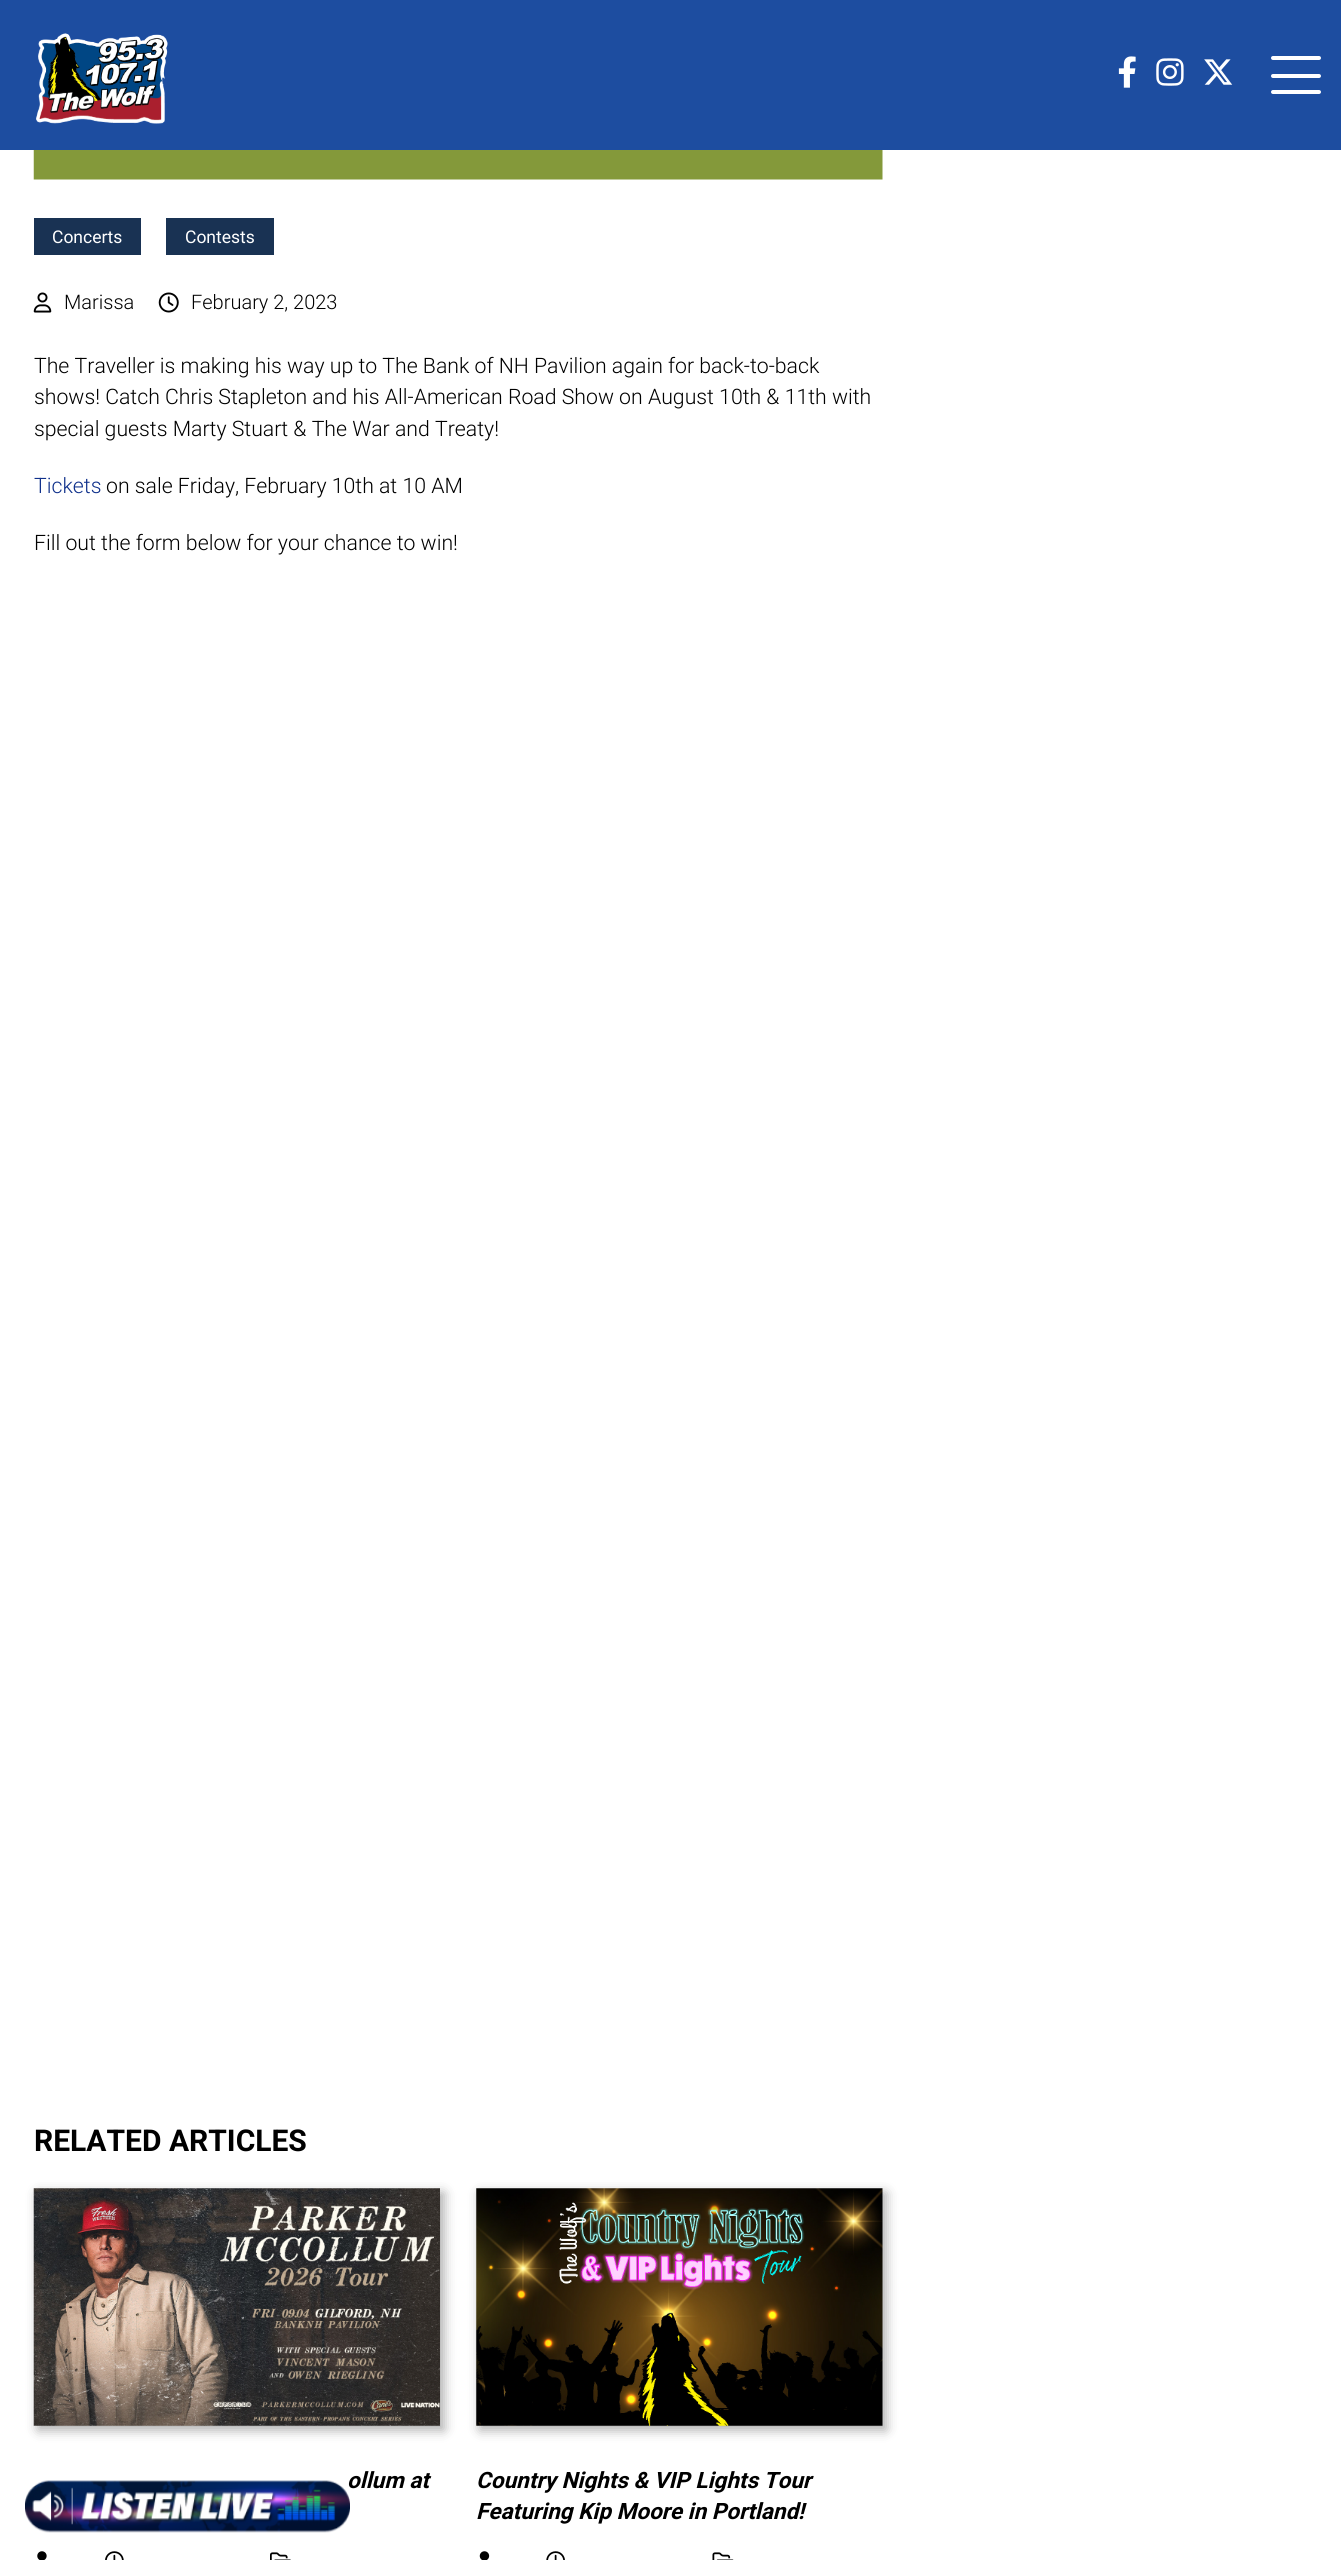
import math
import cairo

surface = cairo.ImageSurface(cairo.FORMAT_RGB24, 1341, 2560)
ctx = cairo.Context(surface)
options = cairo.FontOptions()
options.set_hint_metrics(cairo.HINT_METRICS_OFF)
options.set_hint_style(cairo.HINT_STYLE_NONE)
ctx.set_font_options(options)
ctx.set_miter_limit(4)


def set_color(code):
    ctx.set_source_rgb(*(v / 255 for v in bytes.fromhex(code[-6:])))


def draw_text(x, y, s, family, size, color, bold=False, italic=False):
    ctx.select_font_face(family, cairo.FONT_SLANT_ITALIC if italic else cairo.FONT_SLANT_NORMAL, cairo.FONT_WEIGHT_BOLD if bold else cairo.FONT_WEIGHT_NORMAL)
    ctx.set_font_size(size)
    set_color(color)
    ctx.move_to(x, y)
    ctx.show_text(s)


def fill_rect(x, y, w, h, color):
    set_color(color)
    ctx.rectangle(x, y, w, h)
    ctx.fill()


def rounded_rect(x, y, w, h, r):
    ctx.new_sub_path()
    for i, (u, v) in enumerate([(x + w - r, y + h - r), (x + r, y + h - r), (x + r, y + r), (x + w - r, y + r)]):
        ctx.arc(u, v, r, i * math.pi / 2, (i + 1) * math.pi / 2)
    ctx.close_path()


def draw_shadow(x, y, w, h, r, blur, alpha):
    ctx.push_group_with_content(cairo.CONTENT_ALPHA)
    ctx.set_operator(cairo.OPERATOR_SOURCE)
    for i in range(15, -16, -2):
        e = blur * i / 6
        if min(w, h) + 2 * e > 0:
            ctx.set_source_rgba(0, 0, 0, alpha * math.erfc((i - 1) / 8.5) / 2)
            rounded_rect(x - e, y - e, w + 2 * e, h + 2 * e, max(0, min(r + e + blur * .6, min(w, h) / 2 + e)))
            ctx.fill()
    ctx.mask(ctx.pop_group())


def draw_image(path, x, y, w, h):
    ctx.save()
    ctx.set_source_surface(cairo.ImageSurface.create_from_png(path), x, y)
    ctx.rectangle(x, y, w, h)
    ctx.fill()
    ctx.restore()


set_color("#ffffff")
ctx.paint()
fill_rect(0, 0, 1341, 150, "#1d4da0")
draw_image("assets/img1.png", 36, 33, 132, 91)
draw_image("assets/img2.png", 1118, 56, 18, 32)
draw_image("assets/img3.png", 1156, 58, 28, 28)
draw_image("assets/img4.png", 1204, 59, 29, 26)
set_color("#ffffff")
rounded_rect(1271, 56, 50, 4, 2)
ctx.fill()
rounded_rect(1271, 74, 50, 4, 2)
ctx.fill()
rounded_rect(1271, 90, 50, 4, 2)
ctx.fill()
draw_image("assets/img5.png", 33, 150, 850, 30)
fill_rect(34, 218, 107, 37, "#193253")
draw_text(52, 243, "Concerts", "Roboto", 17.5, "#ffffff")
fill_rect(166, 218, 108, 37, "#193253")
draw_text(185, 243, "Contests", "Roboto", 17.5, "#ffffff")
draw_image("assets/img6.png", 33, 292, 19, 21)
draw_text(64, 309, "Marissa", "Roboto Light", 20, "#000000")
draw_image("assets/img7.png", 158, 292, 21, 21)
draw_text(191, 309, "February 2, 2023", "Roboto Light", 20, "#000000")
draw_text(34, 373, "The Traveller is making his way up to The Bank of NH Pavilion again for back-to-back", "Roboto Light", 21.25, "#000000")
draw_text(34, 404, "shows! Catch Chris Stapleton and his All-American Road Show on August 10th & 11th with", "Roboto Light", 21.25, "#000000")
draw_text(34, 436, "special guests Marty Stuart & The War and Treaty!", "Roboto Light", 21.25, "#000000")
draw_text(34, 493, "Tickets", "Roboto Light", 21.25, "#0f308b")
draw_text(106, 493, "on sale Friday, February 10th at 10 AM", "Roboto Light", 21.25, "#000000")
draw_text(34, 550, "Fill out the form below for your chance to win!", "Roboto Light", 21.25, "#000000")
draw_text(34, 2151, "RELATED ARTICLES", "Roboto", 30, "#000000", bold=True)
set_color("#000000")
draw_shadow(38, 2193, 406, 237, 0, 6, 0.33)
draw_image("assets/img8.png", 33, 2188, 407, 238)
draw_text(347, 2488, "ollum at", "Roboto", 22.5, "#000000", bold=True, italic=True)
draw_image("assets/img9.png", 37, 2551, 10, 9)
draw_image("assets/img10.png", 105, 2551, 19, 9)
draw_image("assets/img11.png", 270, 2552, 21, 8)
set_color("#000000")
draw_shadow(480, 2193, 406, 237, 0, 6, 0.33)
draw_image("assets/img12.png", 476, 2188, 407, 238)
draw_text(476, 2488, "Country Nights & VIP Lights Tour", "Roboto", 22.5, "#000000", bold=True, italic=True)
draw_text(476, 2519, "Featuring Kip Moore in Portland!", "Roboto", 22.5, "#000000", bold=True, italic=True)
draw_image("assets/img13.png", 479, 2551, 11, 9)
draw_image("assets/img14.png", 546, 2551, 19, 9)
draw_image("assets/img15.png", 712, 2552, 22, 8)
draw_image("assets/img16.png", 25, 2480, 325, 53)
surface.write_to_png("output.png")
